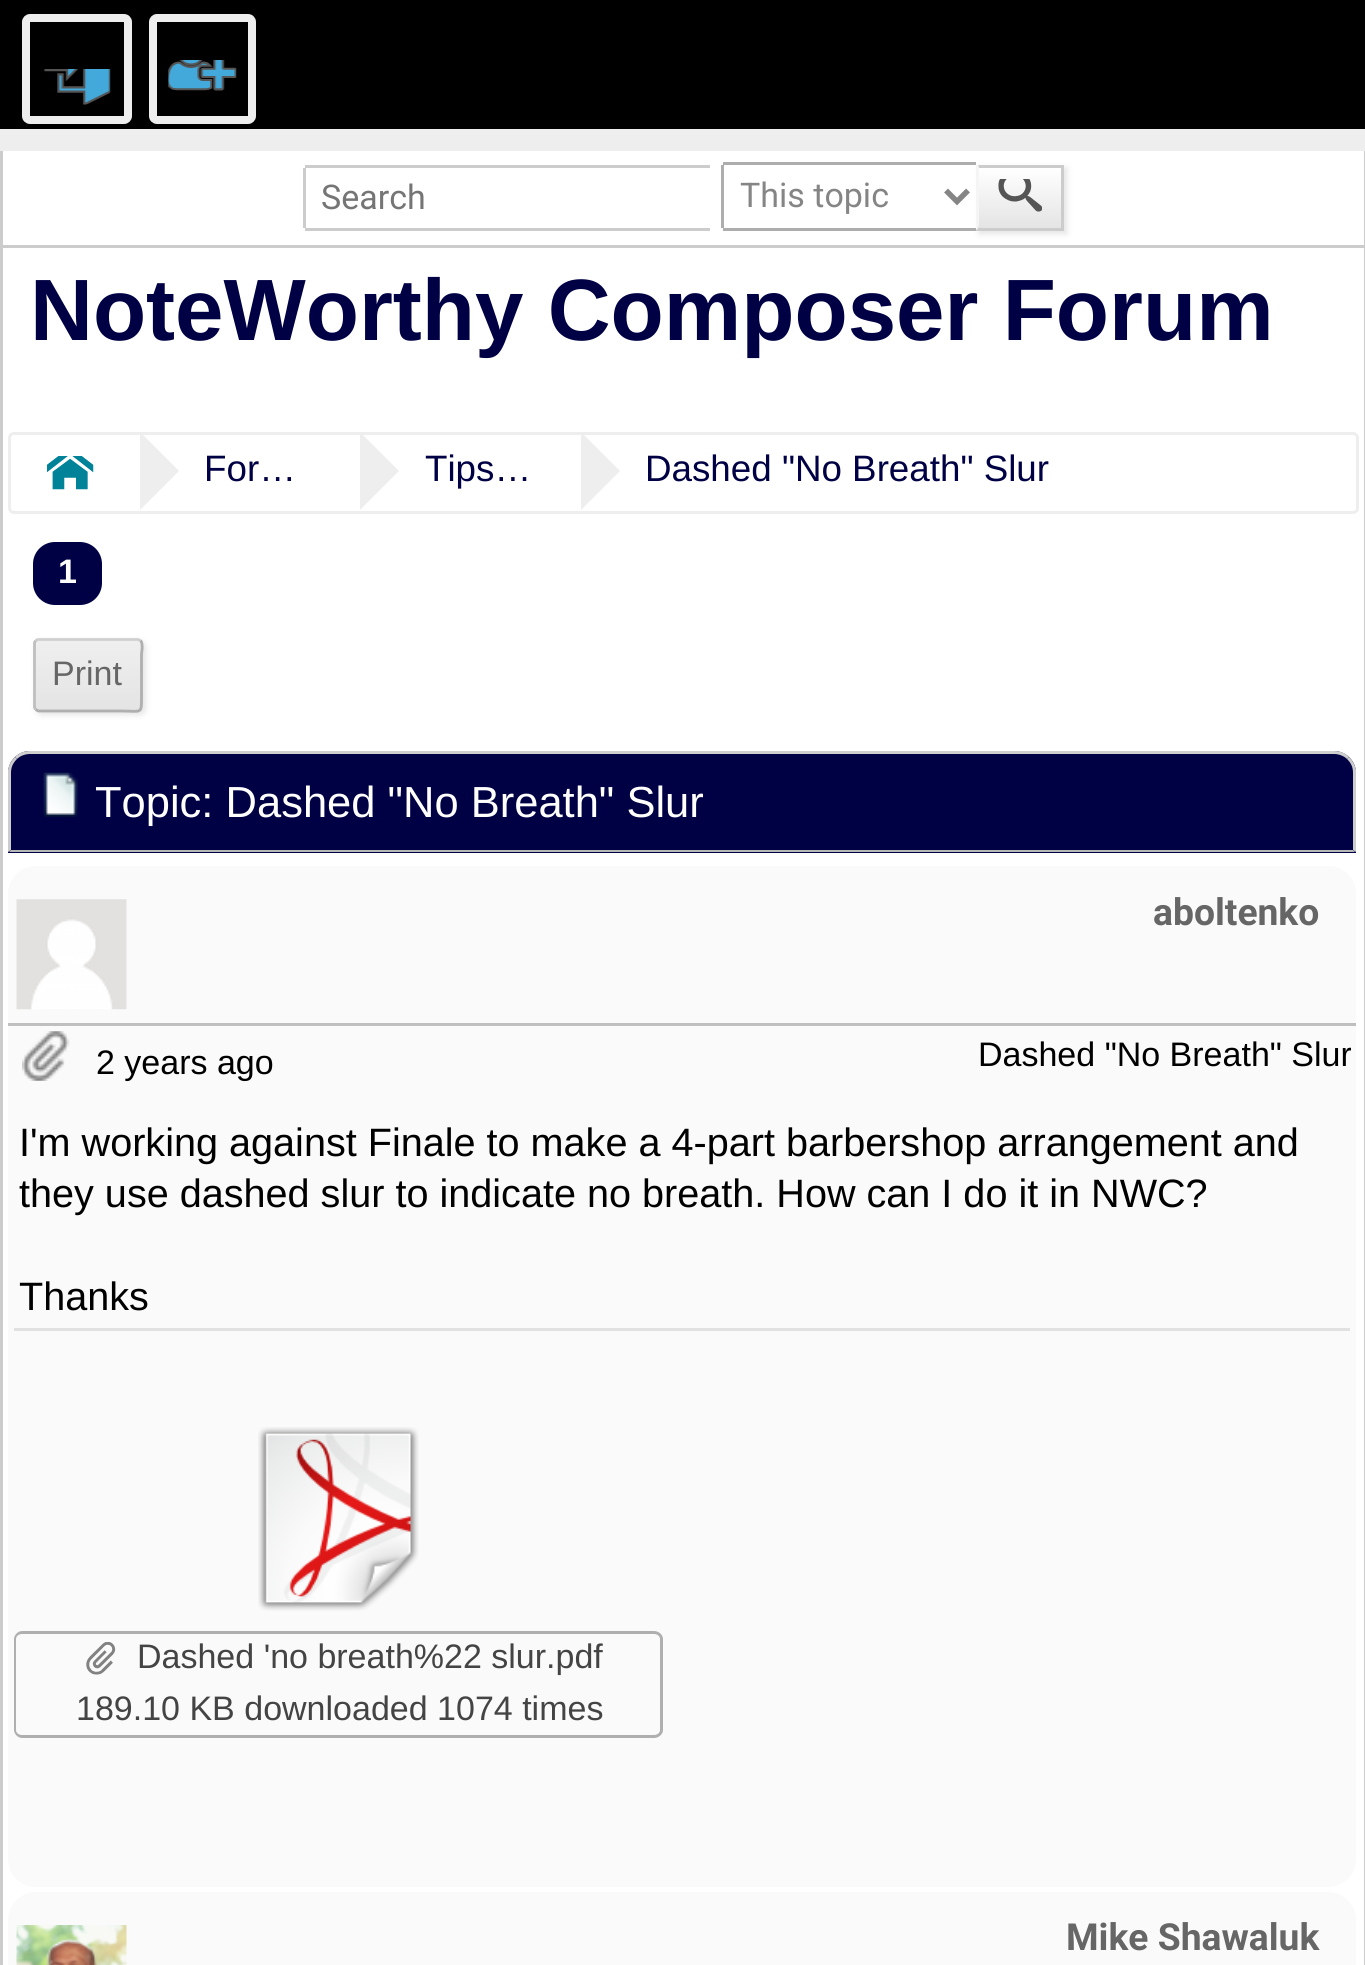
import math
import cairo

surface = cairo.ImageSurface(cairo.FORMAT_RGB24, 1365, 1965)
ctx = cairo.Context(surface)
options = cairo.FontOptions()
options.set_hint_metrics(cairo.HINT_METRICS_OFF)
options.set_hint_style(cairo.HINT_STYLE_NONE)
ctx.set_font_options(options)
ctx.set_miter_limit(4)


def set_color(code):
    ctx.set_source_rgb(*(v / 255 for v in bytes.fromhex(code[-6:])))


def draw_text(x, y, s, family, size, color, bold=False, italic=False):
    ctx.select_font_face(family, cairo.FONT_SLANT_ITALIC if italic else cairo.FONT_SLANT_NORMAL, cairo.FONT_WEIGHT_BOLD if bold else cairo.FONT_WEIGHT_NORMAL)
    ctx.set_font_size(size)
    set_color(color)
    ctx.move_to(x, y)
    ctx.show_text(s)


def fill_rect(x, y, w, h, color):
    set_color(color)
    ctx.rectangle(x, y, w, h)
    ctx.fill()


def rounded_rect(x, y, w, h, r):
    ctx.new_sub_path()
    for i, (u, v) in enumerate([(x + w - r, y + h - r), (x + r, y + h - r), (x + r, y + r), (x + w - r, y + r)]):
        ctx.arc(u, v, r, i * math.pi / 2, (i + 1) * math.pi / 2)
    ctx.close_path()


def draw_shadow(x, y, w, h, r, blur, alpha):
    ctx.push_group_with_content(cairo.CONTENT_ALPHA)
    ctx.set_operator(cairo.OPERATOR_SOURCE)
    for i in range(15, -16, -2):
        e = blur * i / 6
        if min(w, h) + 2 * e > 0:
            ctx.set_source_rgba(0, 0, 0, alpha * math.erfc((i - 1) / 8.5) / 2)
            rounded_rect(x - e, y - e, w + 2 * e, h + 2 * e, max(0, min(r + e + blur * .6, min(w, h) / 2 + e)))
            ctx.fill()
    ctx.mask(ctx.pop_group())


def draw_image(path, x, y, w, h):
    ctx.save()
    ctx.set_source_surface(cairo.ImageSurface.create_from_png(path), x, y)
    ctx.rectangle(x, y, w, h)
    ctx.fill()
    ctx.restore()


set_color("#eeeeee")
ctx.paint()
fill_rect(0, 0, 1365, 129, "#000000")
rounded_rect(26, 18, 102, 102, 4)
set_color("#eeeeee")
ctx.set_line_width(8)
ctx.stroke()
draw_image("assets/img1.png", 44, 69, 67, 36)
rounded_rect(153, 18, 99, 102, 4)
ctx.stroke()
draw_image("assets/img2.png", 168, 60, 69, 31)
fill_rect(3, 151, 1361, 94, "#ffffff")
fill_rect(1364, 151, 1, 223, "#cccccc")
fill_rect(0, 151, 3, 223, "#cccccc")
fill_rect(3, 245, 1361, 3, "#cccccc")
fill_rect(305, 165, 405, 3, "#cccccc")
fill_rect(305, 228, 405, 3, "#cccccc")
fill_rect(303, 168, 3, 60, "#cccccc")
draw_text(321, 209, "Search", "Roboto", 34, "#757575")
set_color("#e5e5e5")
draw_shadow(979, 168, 88, 66, 0, 3, 1)
gradient = cairo.LinearGradient(1020, 168, 1020, 228)
gradient.add_color_stop_rgba(0, 1, 1, 1, 1)
gradient.add_color_stop_rgba(1, 0.894, 0.894, 0.894, 1)
ctx.set_source(gradient)
ctx.rectangle(979, 168, 82, 60)
ctx.fill()
ctx.rectangle(977.5, 166.5, 85, 63)
set_color("#cccccc")
ctx.set_line_width(3)
ctx.stroke()
ctx.set_source_rgba(1, 1, 1, 0.8)
rounded_rect(721, 162, 258, 69, 6)
ctx.fill()
fill_rect(723, 162, 253, 3, "#adadad")
fill_rect(723, 228, 253, 3, "#adadad")
fill_rect(721, 165, 3, 63, "#adadad")
ctx.new_path()
ctx.move_to(946, 190.5)
ctx.line_to(957, 201.5)
ctx.line_to(968, 190.5)
set_color("#858585")
ctx.set_line_width(5.5)
ctx.stroke()
draw_text(740, 207, "This topic", "Roboto", 34, "#858585")
draw_image("assets/img3.png", 998, 179, 44, 33)
fill_rect(3, 248, 1361, 1717, "#ffffff")
draw_text(30, 340, "NoteWorthy Composer Forum", "Liberation Sans", 87.1, "#000044", bold=True)
set_color("#cccccc")
ctx.set_fill_rule(cairo.FILL_RULE_EVEN_ODD)
ctx.new_path()
ctx.move_to(0, 374)
ctx.line_to(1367, 374)
ctx.line_to(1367, 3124)
ctx.curve_to(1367, 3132, 1361, 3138, 1353, 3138)
ctx.line_to(14, 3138)
ctx.curve_to(6, 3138, 0, 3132, 0, 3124)
ctx.close_path()
ctx.move_to(3, 374)
ctx.line_to(1364, 374)
ctx.line_to(1364, 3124)
ctx.curve_to(1364, 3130, 1359, 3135, 1353, 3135)
ctx.line_to(14, 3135)
ctx.curve_to(8, 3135, 3, 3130, 3, 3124)
ctx.close_path()
ctx.fill()
rounded_rect(9.5, 433.5, 1348, 79, 4.5)
set_color("#eeeeee")
ctx.set_line_width(3)
ctx.stroke()
draw_image("assets/img4.png", 47, 456, 47, 34)
gradient = cairo.LinearGradient(101, 471, 179, 471)
gradient.add_color_stop_rgba(0, 1, 1, 1, 1)
gradient.add_color_stop_rgba(0.5, 1, 1, 1, 1)
gradient.add_color_stop_rgba(0.5, 0.933, 0.933, 0.933, 1)
gradient.add_color_stop_rgba(1, 0.933, 0.933, 0.933, 1)
ctx.set_source(gradient)
ctx.set_fill_rule(cairo.FILL_RULE_WINDING)
ctx.new_path()
ctx.move_to(143, 435)
ctx.line_to(179, 471)
ctx.line_to(140, 510)
ctx.line_to(101, 471)
ctx.line_to(137, 435)
ctx.close_path()
ctx.fill()
draw_text(204, 481, "For…", "Liberation Sans", 36.75, "#000044")
gradient = cairo.LinearGradient(321, 471, 399, 471)
gradient.add_color_stop_rgba(0, 1, 1, 1, 1)
gradient.add_color_stop_rgba(0.5, 1, 1, 1, 1)
gradient.add_color_stop_rgba(0.5, 0.933, 0.933, 0.933, 1)
gradient.add_color_stop_rgba(1, 0.933, 0.933, 0.933, 1)
ctx.set_source(gradient)
ctx.new_path()
ctx.move_to(363, 435)
ctx.line_to(399, 471)
ctx.line_to(360, 510)
ctx.line_to(321, 471)
ctx.line_to(357, 435)
ctx.close_path()
ctx.fill()
draw_text(425, 481, "Tips…", "Liberation Sans", 36.75, "#000044")
gradient = cairo.LinearGradient(542, 471, 620, 471)
gradient.add_color_stop_rgba(0, 1, 1, 1, 1)
gradient.add_color_stop_rgba(0.5, 1, 1, 1, 1)
gradient.add_color_stop_rgba(0.5, 0.933, 0.933, 0.933, 1)
gradient.add_color_stop_rgba(1, 0.933, 0.933, 0.933, 1)
ctx.set_source(gradient)
ctx.new_path()
ctx.move_to(584, 435)
ctx.line_to(620, 471)
ctx.line_to(581, 510)
ctx.line_to(542, 471)
ctx.line_to(578, 435)
ctx.close_path()
ctx.fill()
draw_text(645, 481, "Dashed \"No Breath\" Slur", "Liberation Sans", 36.75, "#000044")
rounded_rect(33, 542, 69, 63, 22)
ctx.fill()
draw_text(58, 583, "1", "Liberation Sans", 34, "#ffffff", bold=True)
set_color("#e5e5e5")
draw_shadow(36, 641, 110, 74, 6, 3, 1)
ctx.save()
rounded_rect(33, 638, 110, 74, 6)
ctx.clip()
gradient = cairo.LinearGradient(88, 641, 88, 710)
gradient.add_color_stop_rgba(0, 0.937, 0.937, 0.937, 1)
gradient.add_color_stop_rgba(1, 0.894, 0.894, 0.894, 1)
ctx.set_source(gradient)
ctx.rectangle(33, 641, 110, 69)
ctx.fill()
ctx.restore()
ctx.new_path()
ctx.move_to(35.5, 640.5)
ctx.line_to(38, 639.5)
ctx.line_to(138, 639.5)
ctx.line_to(140.5, 640.5)
set_color("#cfcfcf")
ctx.set_line_width(2.8)
ctx.stroke()
ctx.new_path()
ctx.move_to(140.5, 640.5)
ctx.curve_to(143.5, 643.5, 141.5, 653.5, 141.5, 654)
ctx.line_to(141.5, 696)
ctx.curve_to(141.5, 715, 142, 711, 121, 711)
ctx.line_to(38.5, 711)
ctx.line_to(35.5, 709.5)
set_color("#afafaf")
ctx.stroke()
ctx.new_path()
ctx.move_to(35.5, 709.5)
ctx.line_to(34.5, 707)
ctx.line_to(34.5, 643)
ctx.line_to(35.5, 640.5)
set_color("#bfbfbf")
ctx.stroke()
draw_text(52, 685, "Print", "Liberation Sans", 34, "#666666")
set_color("#000044")
ctx.new_path()
ctx.move_to(30, 751)
ctx.line_to(1334, 751)
ctx.curve_to(1346, 751, 1356, 761, 1356, 773)
ctx.line_to(1356, 853)
ctx.line_to(8, 853)
ctx.line_to(8, 773)
ctx.curve_to(8, 761, 18, 751, 30, 751)
ctx.close_path()
ctx.fill()
set_color("#cfcfcf")
ctx.new_path()
ctx.move_to(30, 751)
ctx.curve_to(24, 751, 19, 753, 15, 757)
ctx.line_to(17, 759)
ctx.curve_to(20, 756, 25, 754, 30, 754)
ctx.line_to(1334, 754)
ctx.curve_to(1339, 754, 1344, 756, 1347, 759)
ctx.line_to(1349, 757)
ctx.curve_to(1345, 753, 1340, 751, 1334, 751)
ctx.close_path()
ctx.fill()
set_color("#cccccc")
ctx.new_path()
ctx.move_to(1349, 757)
ctx.curve_to(1353, 761, 1355, 765, 1356, 770)
ctx.line_to(1356, 852)
ctx.line_to(1353, 850)
ctx.line_to(1353, 773)
ctx.curve_to(1353, 767, 1351, 763, 1347, 759)
ctx.close_path()
ctx.fill()
set_color("#b7b7b7")
ctx.new_path()
ctx.move_to(1355, 852)
ctx.line_to(9, 852)
ctx.line_to(11, 850)
ctx.line_to(1353, 850)
ctx.close_path()
ctx.fill()
set_color("#cccccc")
ctx.new_path()
ctx.move_to(8, 770)
ctx.curve_to(9, 765, 11, 761, 15, 757)
ctx.line_to(17, 759)
ctx.curve_to(13, 763, 11, 767, 11, 773)
ctx.line_to(11, 850)
ctx.line_to(8, 852)
ctx.close_path()
ctx.fill()
draw_image("assets/img5.png", 43, 772, 35, 45)
draw_text(95, 817, "Topic: Dashed \"No Breath\" Slur", "Liberation Sans", 43.5, "#ffffff")
set_color("#fafafa")
rounded_rect(8, 866, 1348, 1021, 28)
ctx.fill()
draw_image("assets/img6.png", 16, 899, 111, 111)
draw_text(1153, 925, "aboltenko", "Roboto", 37.25, "#666666", bold=True)
fill_rect(8, 1023, 1348, 3, "#bfbfbf")
draw_image("assets/img7.png", 22, 1031, 48, 50)
draw_text(96, 1074, "2 years ago", "Liberation Sans", 34, "#000000")
draw_text(978, 1066, "Dashed \"No Breath\" Slur", "Liberation Sans", 34, "#000000")
draw_text(19, 1156, "I'm working against Finale to make a 4-part barbershop arrangement and", "Liberation Sans", 39.6, "#000000")
draw_text(19, 1207, "they use dashed slur to indicate no breath. How can I do it in NWC?", "Liberation Sans", 39.6, "#000000")
draw_text(19, 1310, "Thanks", "Liberation Sans", 39.6, "#000000")
fill_rect(14, 1328, 1336, 3, "#e1e1e1")
draw_image("assets/img8.png", 258, 1427, 161, 184)
set_color("#afafaf")
ctx.set_fill_rule(cairo.FILL_RULE_EVEN_ODD)
ctx.new_path()
ctx.move_to(22, 1631)
ctx.line_to(654, 1631)
ctx.curve_to(659, 1631, 663, 1635, 663, 1639)
ctx.line_to(663, 1683)
ctx.line_to(14, 1683)
ctx.line_to(14, 1639)
ctx.curve_to(14, 1635, 18, 1631, 22, 1631)
ctx.close_path()
ctx.move_to(22, 1634)
ctx.line_to(654, 1634)
ctx.curve_to(657, 1634, 660, 1636, 660, 1639)
ctx.line_to(660, 1683)
ctx.line_to(16, 1683)
ctx.line_to(16, 1639)
ctx.curve_to(16, 1636, 19, 1634, 22, 1634)
ctx.close_path()
ctx.fill()
draw_image("assets/img9.png", 86, 1642, 30, 33)
draw_text(137, 1668, "Dashed 'no breath%22 slur.pdf", "Liberation Sans", 34, "#444444")
set_color("#afafaf")
ctx.new_path()
ctx.move_to(14, 1683)
ctx.line_to(663, 1683)
ctx.line_to(663, 1730)
ctx.curve_to(663, 1734, 659, 1738, 654, 1738)
ctx.line_to(22, 1738)
ctx.curve_to(18, 1738, 14, 1734, 14, 1730)
ctx.close_path()
ctx.move_to(16, 1683)
ctx.line_to(660, 1683)
ctx.line_to(660, 1730)
ctx.curve_to(660, 1733, 657, 1735, 654, 1735)
ctx.line_to(22, 1735)
ctx.curve_to(19, 1735, 16, 1733, 16, 1730)
ctx.close_path()
ctx.fill()
draw_text(76, 1720, "189.10 KB downloaded 1074 times", "Liberation Sans", 34, "#444444")
set_color("#fafafa")
rounded_rect(8, 1892, 1348, 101, 28)
ctx.fill()
draw_image("assets/img10.png", 16, 1925, 111, 40)
draw_text(1066, 1950, "Mike Shawaluk", "Roboto", 37.25, "#666666", bold=True)
surface.write_to_png("output.png")
